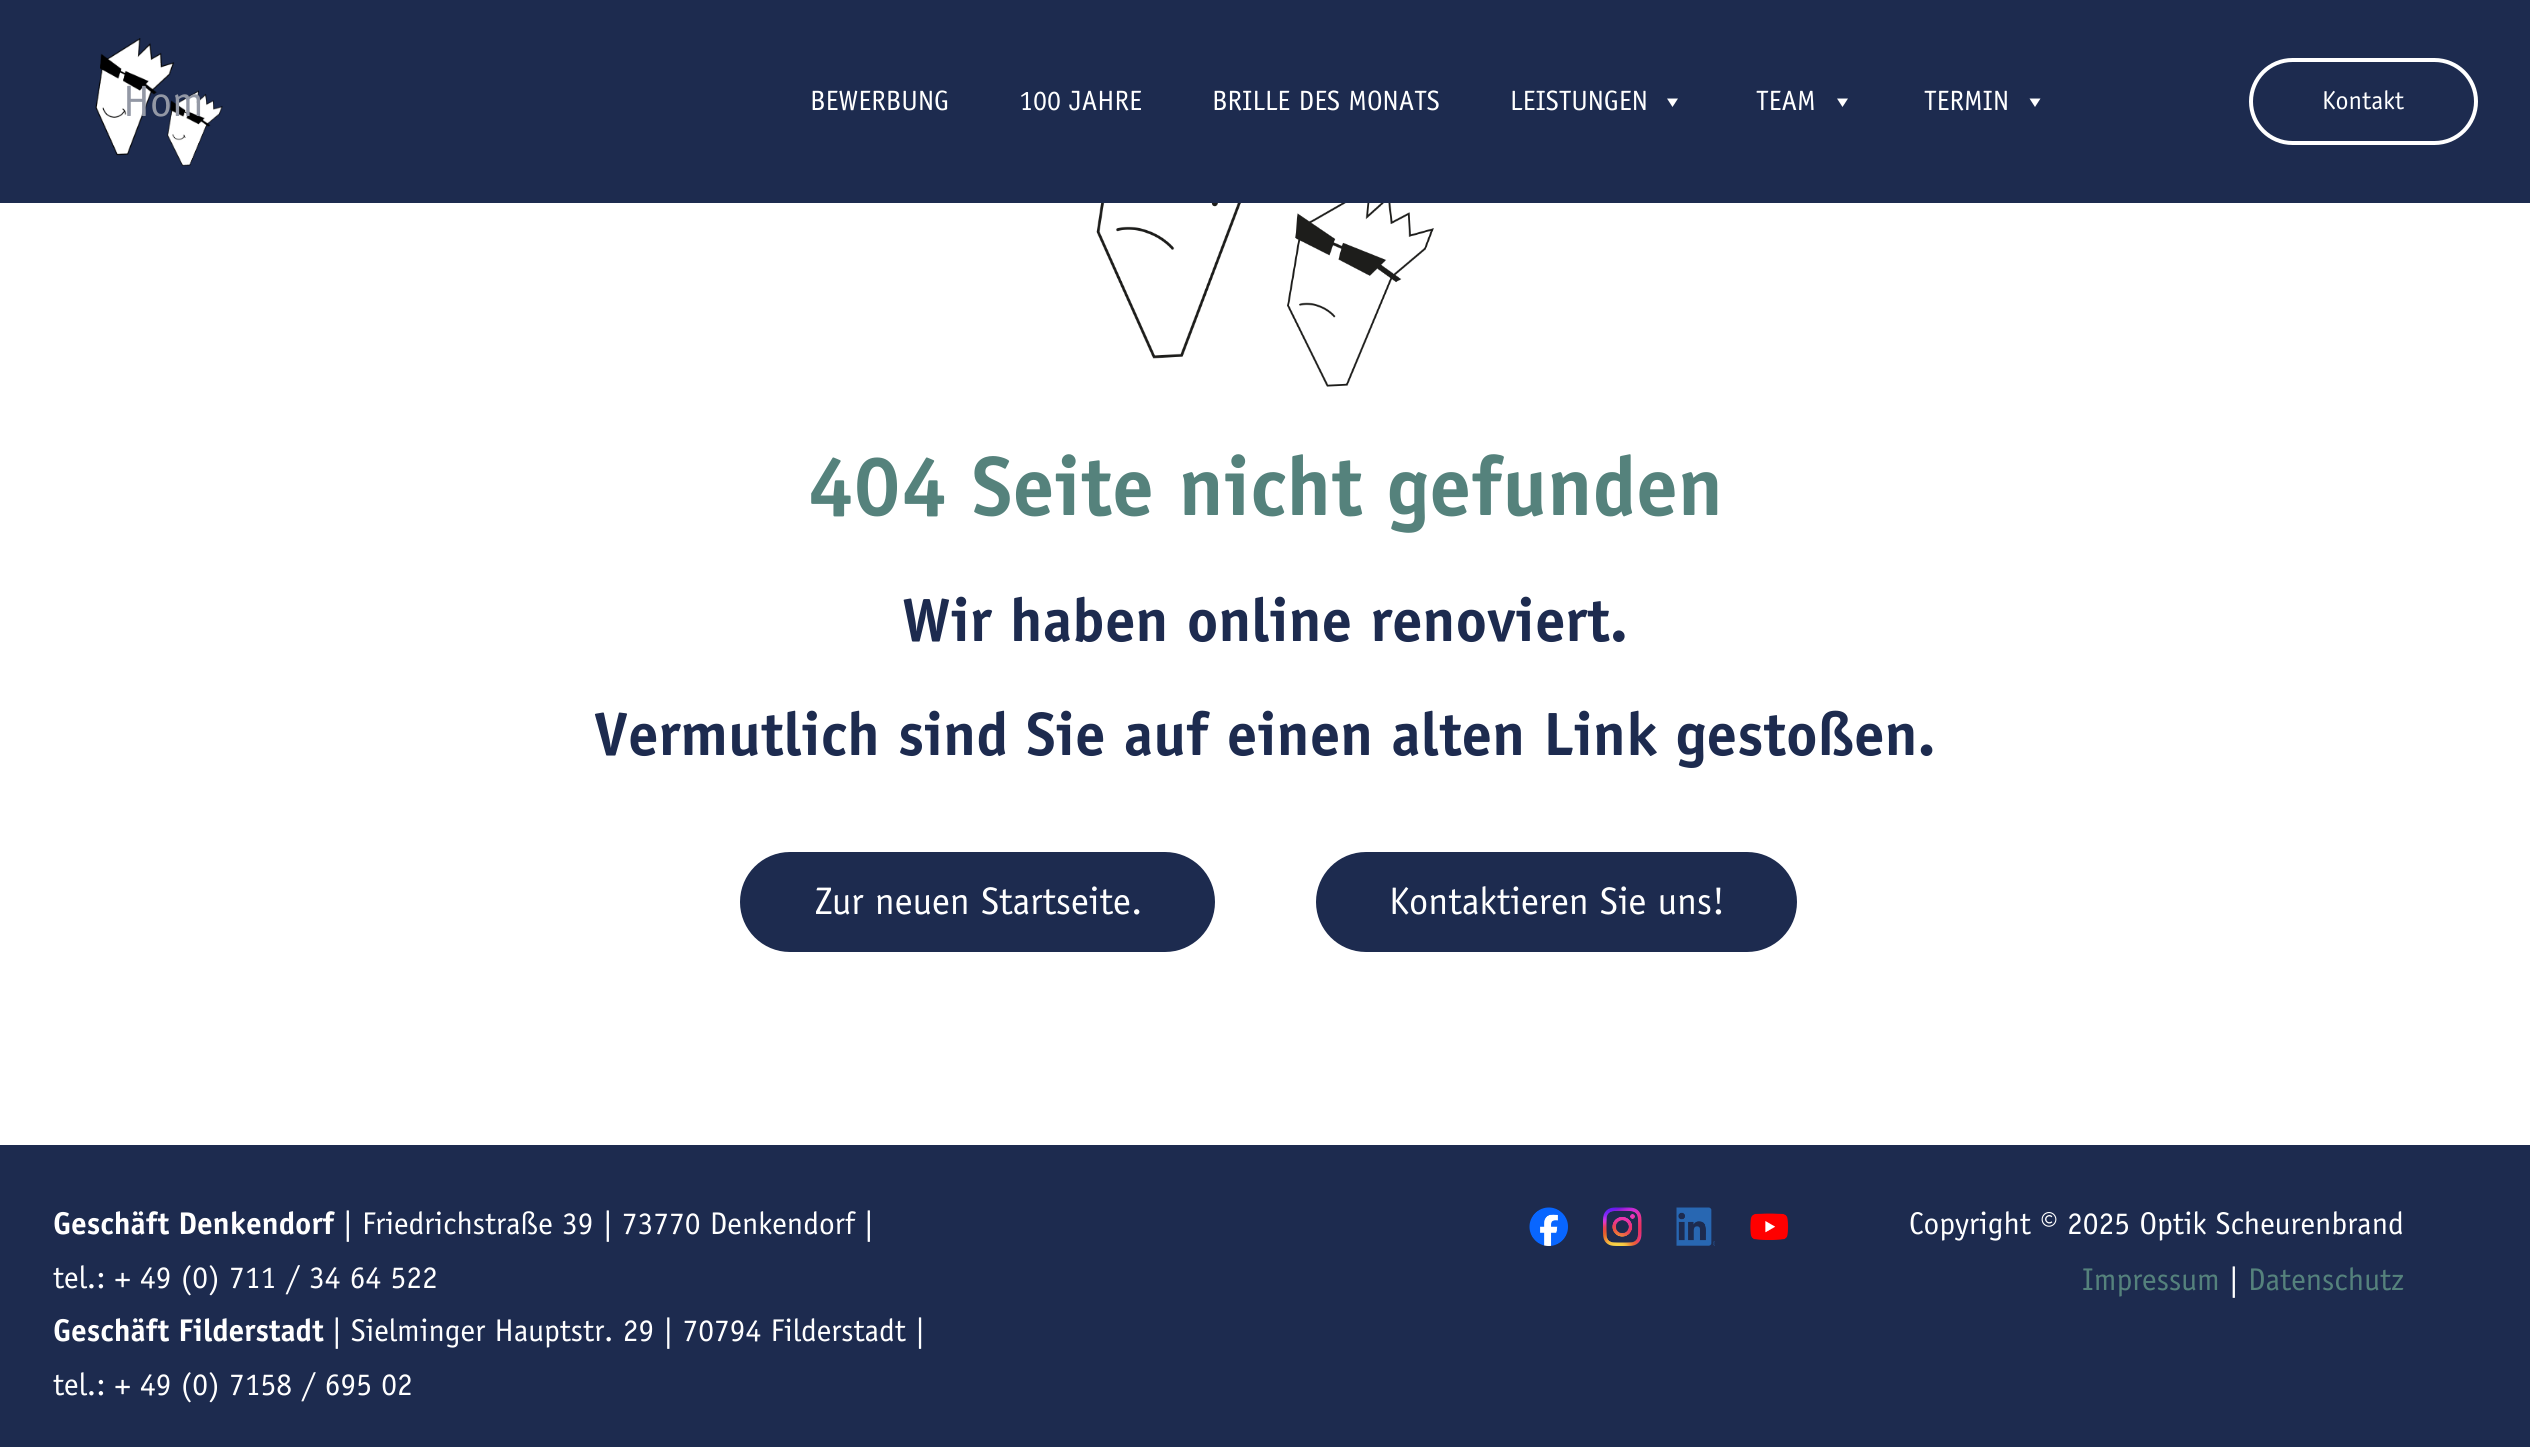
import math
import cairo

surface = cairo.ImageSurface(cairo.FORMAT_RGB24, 2530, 1447)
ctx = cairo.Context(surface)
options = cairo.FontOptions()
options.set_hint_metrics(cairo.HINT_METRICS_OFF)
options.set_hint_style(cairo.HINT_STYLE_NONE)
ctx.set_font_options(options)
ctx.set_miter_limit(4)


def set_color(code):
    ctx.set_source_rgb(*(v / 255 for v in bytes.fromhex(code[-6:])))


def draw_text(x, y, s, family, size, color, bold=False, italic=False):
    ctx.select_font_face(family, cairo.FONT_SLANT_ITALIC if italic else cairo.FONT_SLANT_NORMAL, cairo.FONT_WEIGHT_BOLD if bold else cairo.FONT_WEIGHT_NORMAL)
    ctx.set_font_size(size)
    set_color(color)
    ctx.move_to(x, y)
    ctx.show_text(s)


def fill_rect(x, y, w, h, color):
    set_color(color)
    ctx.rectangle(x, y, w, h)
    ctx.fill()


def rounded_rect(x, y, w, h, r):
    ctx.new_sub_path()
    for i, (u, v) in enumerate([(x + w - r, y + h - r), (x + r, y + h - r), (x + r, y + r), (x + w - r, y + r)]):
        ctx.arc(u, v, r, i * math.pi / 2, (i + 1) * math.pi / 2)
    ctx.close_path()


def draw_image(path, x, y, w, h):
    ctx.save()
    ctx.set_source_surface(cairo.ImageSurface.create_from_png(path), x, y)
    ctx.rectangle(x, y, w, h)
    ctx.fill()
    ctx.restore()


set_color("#ffffff")
ctx.paint()
fill_rect(0, 0, 2530, 203, "#1d2b4f")
draw_image("assets/img1.png", 95, 38, 128, 128)
draw_text(123, 116, "Hom", "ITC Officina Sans", 44, "#9398a5")
draw_text(810, 110, "BEWERBUNG", "ITC Officina Sans", 28, "#ffffff")
draw_text(1019, 110, "100 JAHRE", "ITC Officina Sans", 28, "#ffffff")
draw_text(1212, 110, "BRILLE DES MONATS", "ITC Officina Sans", 28, "#ffffff")
draw_text(1510, 110, "LEISTUNGEN", "ITC Officina Sans", 28, "#ffffff")
ctx.new_path()
ctx.move_to(1678, 98.5)
ctx.line_to(1672.5, 107)
ctx.line_to(1667, 98.5)
ctx.close_path()
ctx.fill()
draw_text(1756, 110, "TEAM", "ITC Officina Sans", 28, "#ffffff")
ctx.new_path()
ctx.move_to(1848, 98.5)
ctx.line_to(1842.5, 107)
ctx.line_to(1837, 98.5)
ctx.close_path()
ctx.fill()
draw_text(1924, 110, "TERMIN", "ITC Officina Sans", 28, "#ffffff")
ctx.new_path()
ctx.move_to(2040.5, 98.5)
ctx.line_to(2035, 107)
ctx.line_to(2029.5, 98.5)
ctx.close_path()
ctx.fill()
rounded_rect(2251, 60, 225, 83, 41.5)
ctx.set_line_width(4)
ctx.stroke()
draw_text(2322, 109, "Kontakt", "ITC Officina Sans", 26, "#ffffff")
draw_image("assets/img2.png", 1096, 203, 338, 184)
draw_text(807, 515, "404 Seite nicht gefunden", "ITC Officina Sans", 84, "#55827c", bold=True)
draw_text(902, 641, "Wir haben online renoviert.", "ITC Officina Sans", 61.25, "#1d2b4f", bold=True)
draw_text(594, 755, "Vermutlich sind Sie auf einen alten Link gestoßen.", "ITC Officina Sans", 61.25, "#1d2b4f", bold=True)
rounded_rect(742, 854, 471, 96, 48)
ctx.fill_preserve()
ctx.stroke()
draw_text(815, 914, "Zur neuen Startseite.", "ITC Officina Sans", 38.5, "#ffffff")
set_color("#1d2b4f")
rounded_rect(1318, 854, 477, 96, 48)
ctx.fill_preserve()
ctx.stroke()
draw_text(1389, 914, "Kontaktieren Sie uns!", "ITC Officina Sans", 38.5, "#ffffff")
fill_rect(0, 1145, 2530, 302, "#1d2b4f")
draw_text(53, 1234, "Geschäft Denkendorf", "ITC Officina Sans", 31.5, "#ffffff", bold=True)
draw_text(343, 1234, "| Friedrichstraße 39 | 73770 Denkendorf |", "ITC Officina Sans", 31.5, "#ffffff")
draw_text(53, 1288, "tel.: + 49 (0) 711 / 34 64 522", "ITC Officina Sans", 31.5, "#ffffff")
draw_text(53, 1341, "Geschäft Filderstadt", "ITC Officina Sans", 31.5, "#ffffff", bold=True)
draw_text(332, 1341, "| Sielminger Hauptstr. 29 | 70794 Filderstadt |", "ITC Officina Sans", 31.5, "#ffffff")
draw_text(53, 1395, "tel.: + 49 (0) 7158 / 695 02", "ITC Officina Sans", 31.5, "#ffffff")
draw_image("assets/img3.png", 1529, 1207, 39, 39)
draw_image("assets/img4.png", 1603, 1207, 39, 39)
draw_image("assets/img5.png", 1676, 1207, 39, 39)
draw_image("assets/img6.png", 1750, 1213, 39, 27)
draw_text(1909, 1234, "Copyright © 2025 Optik Scheurenbrand", "ITC Officina Sans", 31.5, "#ffffff")
draw_text(2082, 1290, "Impressum", "ITC Officina Sans", 31.5, "#55827c")
draw_text(2229, 1290, "|", "ITC Officina Sans", 31.5, "#ffffff")
draw_text(2248, 1290, "Datenschutz", "ITC Officina Sans", 31.5, "#55827c")
surface.write_to_png("output.png")
